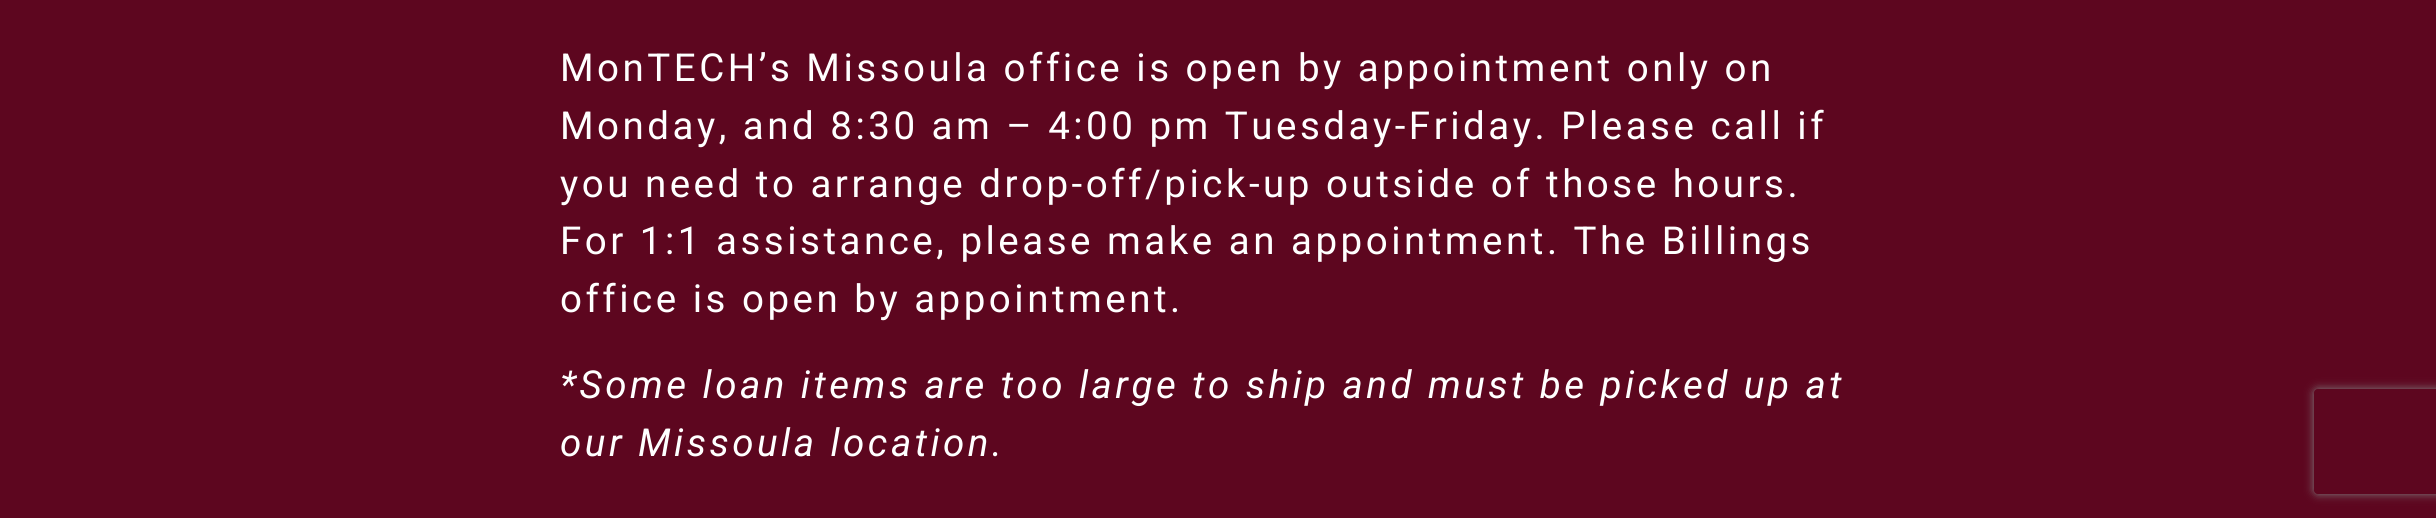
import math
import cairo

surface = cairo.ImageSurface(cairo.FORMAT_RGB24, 2436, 518)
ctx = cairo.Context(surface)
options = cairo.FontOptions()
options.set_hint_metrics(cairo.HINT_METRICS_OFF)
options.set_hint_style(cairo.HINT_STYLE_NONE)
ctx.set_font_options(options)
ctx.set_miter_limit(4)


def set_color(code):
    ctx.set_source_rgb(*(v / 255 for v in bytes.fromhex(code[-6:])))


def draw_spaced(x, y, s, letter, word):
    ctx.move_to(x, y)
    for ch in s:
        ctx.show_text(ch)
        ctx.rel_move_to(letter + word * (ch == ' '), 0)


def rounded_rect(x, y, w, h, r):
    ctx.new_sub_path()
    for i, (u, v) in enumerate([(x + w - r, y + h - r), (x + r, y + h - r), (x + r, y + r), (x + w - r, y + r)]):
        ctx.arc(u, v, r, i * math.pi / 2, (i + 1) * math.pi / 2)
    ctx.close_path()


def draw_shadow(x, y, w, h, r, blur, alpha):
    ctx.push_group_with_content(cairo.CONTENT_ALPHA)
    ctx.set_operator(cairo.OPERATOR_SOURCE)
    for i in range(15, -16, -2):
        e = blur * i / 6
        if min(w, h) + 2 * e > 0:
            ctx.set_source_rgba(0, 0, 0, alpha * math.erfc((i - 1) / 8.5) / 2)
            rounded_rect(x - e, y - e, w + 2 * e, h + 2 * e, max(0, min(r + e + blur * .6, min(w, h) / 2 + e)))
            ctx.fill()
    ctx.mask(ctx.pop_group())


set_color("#5d061f")
ctx.paint()
ctx.select_font_face("Roboto")
ctx.set_font_size(38.5)
set_color("#ffffff")
draw_spaced(560, 81, "MonTECH’s Missoula office is open by appointment only on", 3.5, 0)
draw_spaced(560, 139, "Monday, and 8:30 am – 4:00 pm Tuesday-Friday. Please call if", 3.5, 0)
draw_spaced(560, 197, "you need to arrange drop-off/pick-up outside of those hours.", 3.5, 0)
draw_spaced(560, 254, "For 1:1 assistance, please make an appointment. The Billings", 3.5, 0)
draw_spaced(560, 312, "office is open by appointment.", 3.5, 0)
ctx.select_font_face("Roboto", cairo.FONT_SLANT_ITALIC)
draw_spaced(560, 398, "*Some loan items are too large to ship and must be picked up at", 3.5, 0)
draw_spaced(560, 456, "our Missoula location.", 3.5, 0)
ctx.save()
ctx.set_fill_rule(cairo.FILL_RULE_EVEN_ODD)
ctx.new_path()
ctx.move_to(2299, 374)
ctx.line_to(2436, 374)
ctx.line_to(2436, 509)
ctx.line_to(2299, 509)
ctx.close_path()
ctx.move_to(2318, 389)
ctx.line_to(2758, 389)
ctx.curve_to(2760, 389, 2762, 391, 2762, 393)
ctx.line_to(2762, 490)
ctx.curve_to(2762, 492, 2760, 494, 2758, 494)
ctx.line_to(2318, 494)
ctx.curve_to(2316, 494, 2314, 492, 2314, 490)
ctx.line_to(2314, 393)
ctx.curve_to(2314, 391, 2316, 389, 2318, 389)
ctx.close_path()
ctx.clip()
set_color("#808080")
draw_shadow(2314, 389, 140, 105, 4, 4.5, 1)
ctx.restore()
surface.write_to_png("output.png")
